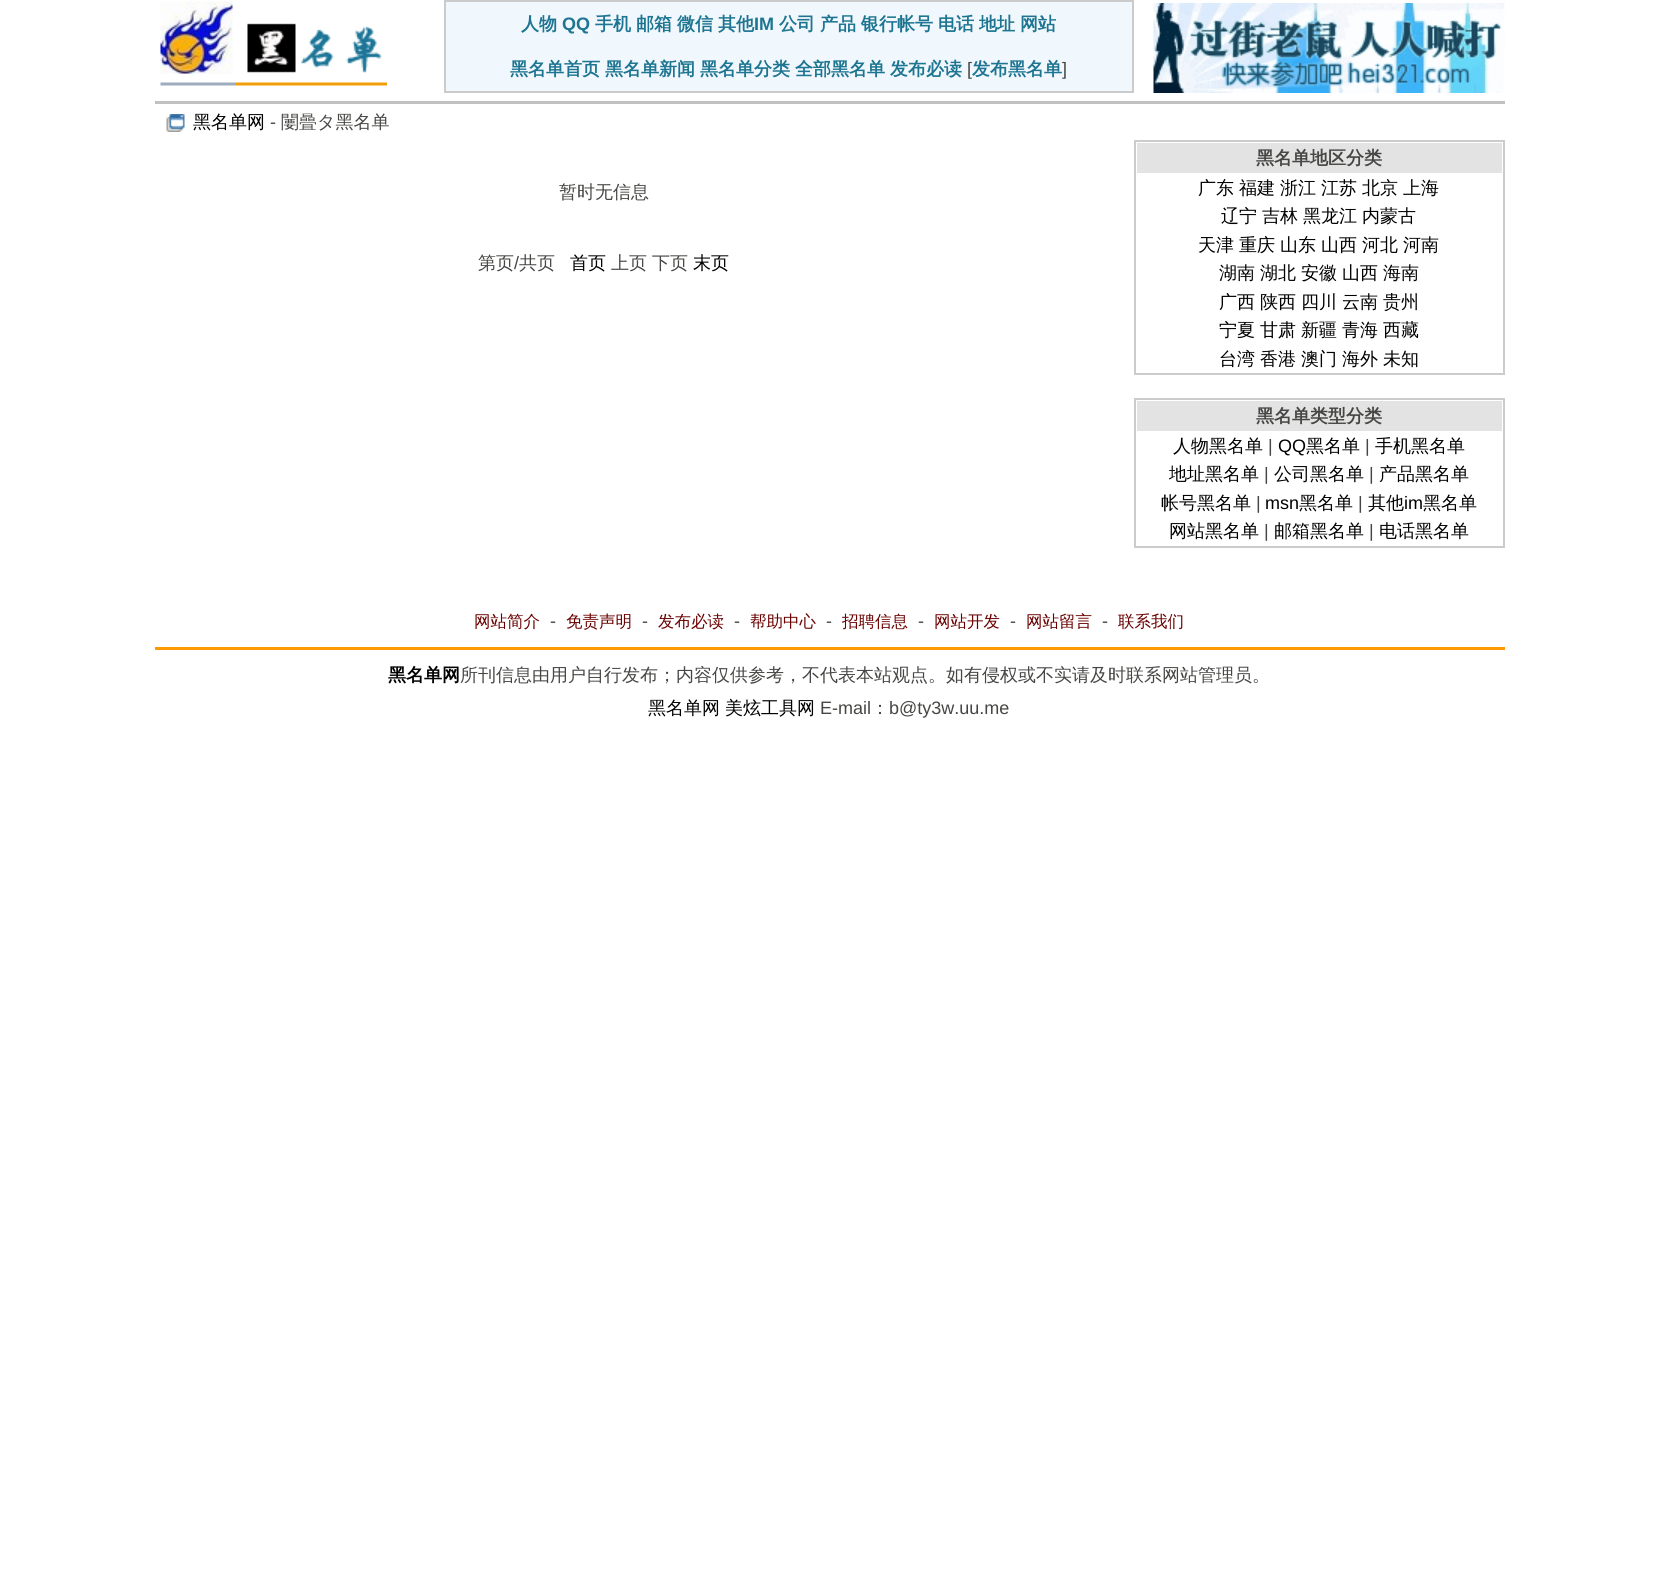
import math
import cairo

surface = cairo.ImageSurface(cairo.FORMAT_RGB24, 1657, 1569)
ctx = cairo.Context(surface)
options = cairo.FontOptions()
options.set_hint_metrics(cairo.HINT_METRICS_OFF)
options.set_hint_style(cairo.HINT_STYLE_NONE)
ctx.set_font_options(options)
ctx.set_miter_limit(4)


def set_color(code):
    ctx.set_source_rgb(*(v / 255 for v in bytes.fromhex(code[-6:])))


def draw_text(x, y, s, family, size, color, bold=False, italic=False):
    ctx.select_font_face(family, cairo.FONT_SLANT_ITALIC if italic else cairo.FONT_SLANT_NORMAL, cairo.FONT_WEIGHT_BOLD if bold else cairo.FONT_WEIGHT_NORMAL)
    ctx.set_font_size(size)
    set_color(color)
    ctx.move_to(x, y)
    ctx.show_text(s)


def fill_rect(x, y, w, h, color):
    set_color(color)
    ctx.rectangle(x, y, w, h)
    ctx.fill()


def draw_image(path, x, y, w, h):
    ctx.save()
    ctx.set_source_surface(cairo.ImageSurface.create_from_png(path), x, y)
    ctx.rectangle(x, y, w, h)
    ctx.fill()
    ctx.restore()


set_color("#ffffff")
ctx.paint()
draw_image("assets/img1.png", 160, 1, 227, 85)
set_color("#f0f7fd")
ctx.rectangle(445, 1, 688, 91)
ctx.fill_preserve()
set_color("#cbcbcb")
ctx.stroke()
draw_text(521, 30, "人物", "WenQuanYi Zen Hei", 18, "#1d7591", bold=True)
draw_text(562, 30, "QQ", "Liberation Sans", 18, "#1d7591", bold=True)
draw_text(595, 30, "手机", "WenQuanYi Zen Hei", 18, "#1d7591", bold=True)
draw_text(636, 30, "邮箱", "WenQuanYi Zen Hei", 18, "#1d7591", bold=True)
draw_text(677, 30, "微信", "WenQuanYi Zen Hei", 18, "#1d7591", bold=True)
draw_text(718, 30, "其他", "WenQuanYi Zen Hei", 18, "#1d7591", bold=True)
draw_text(754, 30, "IM", "Liberation Sans", 18, "#1d7591", bold=True)
draw_text(779, 30, "公司", "WenQuanYi Zen Hei", 18, "#1d7591", bold=True)
draw_text(820, 30, "产品", "WenQuanYi Zen Hei", 18, "#1d7591", bold=True)
draw_text(861, 30, "银行帐号", "WenQuanYi Zen Hei", 18, "#1d7591", bold=True)
draw_text(938, 30, "电话", "WenQuanYi Zen Hei", 18, "#1d7591", bold=True)
draw_text(979, 30, "地址", "WenQuanYi Zen Hei", 18, "#1d7591", bold=True)
draw_text(1020, 30, "网站", "WenQuanYi Zen Hei", 18, "#1d7591", bold=True)
draw_text(510, 75, "黑名单首页", "WenQuanYi Zen Hei", 18, "#1d7591", bold=True)
draw_text(605, 75, "黑名单新闻", "WenQuanYi Zen Hei", 18, "#1d7591", bold=True)
draw_text(700, 75, "黑名单分类", "WenQuanYi Zen Hei", 18, "#1d7591", bold=True)
draw_text(795, 75, "全部黑名单", "WenQuanYi Zen Hei", 18, "#1d7591", bold=True)
draw_text(890, 75, "发布必读", "WenQuanYi Zen Hei", 18, "#1d7591", bold=True)
draw_text(967, 75, "[", "Liberation Sans", 18, "#464644")
draw_text(972, 75, "发布黑名单", "WenQuanYi Zen Hei", 18, "#1d7591", bold=True)
draw_text(1062, 75, "]", "Liberation Sans", 18, "#464644")
draw_image("assets/img2.png", 1153, 3, 352, 90)
fill_rect(155, 101, 1350, 3, "#c1c1c1")
draw_image("assets/img3.png", 166, 114, 19, 18)
draw_text(193, 128, "黑名单网", "WenQuanYi Zen Hei Medium", 18, "#000000")
draw_text(270, 128, "-", "Liberation Sans", 18, "#464644")
draw_text(281, 128, "闄曡タ黑名单", "WenQuanYi Zen Hei Medium", 18, "#464644")
draw_text(559, 198, "暂时无信息", "WenQuanYi Zen Hei Medium", 18, "#464644")
draw_text(478, 269, "第页", "WenQuanYi Zen Hei Medium", 18, "#464644")
draw_text(514, 269, "/", "Liberation Sans", 18, "#464644")
draw_text(519, 269, "共页", "WenQuanYi Zen Hei Medium", 18, "#464644")
draw_text(570, 269, "首页", "WenQuanYi Zen Hei Medium", 18, "#000000")
draw_text(611, 269, "上页", "WenQuanYi Zen Hei Medium", 18, "#464644")
draw_text(652, 269, "下页", "WenQuanYi Zen Hei Medium", 18, "#464644")
draw_text(693, 269, "末页", "WenQuanYi Zen Hei Medium", 18, "#000000")
ctx.rectangle(1135, 141, 369, 233)
set_color("#cccccc")
ctx.stroke()
fill_rect(1137, 143, 365, 30, "#e3e3e3")
draw_text(1256, 164, "黑名单地区分类", "WenQuanYi Zen Hei", 18, "#464644", bold=True)
draw_text(1198, 194, "广东", "WenQuanYi Zen Hei Medium", 18, "#000000")
draw_text(1239, 194, "福建", "WenQuanYi Zen Hei Medium", 18, "#000000")
draw_text(1280, 194, "浙江", "WenQuanYi Zen Hei Medium", 18, "#000000")
draw_text(1321, 194, "江苏", "WenQuanYi Zen Hei Medium", 18, "#000000")
draw_text(1362, 194, "北京", "WenQuanYi Zen Hei Medium", 18, "#000000")
draw_text(1403, 194, "上海", "WenQuanYi Zen Hei Medium", 18, "#000000")
draw_text(1221, 222, "辽宁", "WenQuanYi Zen Hei Medium", 18, "#000000")
draw_text(1262, 222, "吉林", "WenQuanYi Zen Hei Medium", 18, "#000000")
draw_text(1303, 222, "黑龙江", "WenQuanYi Zen Hei Medium", 18, "#000000")
draw_text(1362, 222, "内蒙古", "WenQuanYi Zen Hei Medium", 18, "#000000")
draw_text(1198, 251, "天津", "WenQuanYi Zen Hei Medium", 18, "#000000")
draw_text(1239, 251, "重庆", "WenQuanYi Zen Hei Medium", 18, "#000000")
draw_text(1280, 251, "山东", "WenQuanYi Zen Hei Medium", 18, "#000000")
draw_text(1321, 251, "山西", "WenQuanYi Zen Hei Medium", 18, "#000000")
draw_text(1362, 251, "河北", "WenQuanYi Zen Hei Medium", 18, "#000000")
draw_text(1403, 251, "河南", "WenQuanYi Zen Hei Medium", 18, "#000000")
draw_text(1219, 279, "湖南", "WenQuanYi Zen Hei Medium", 18, "#000000")
draw_text(1260, 279, "湖北", "WenQuanYi Zen Hei Medium", 18, "#000000")
draw_text(1301, 279, "安徽", "WenQuanYi Zen Hei Medium", 18, "#000000")
draw_text(1342, 279, "山西", "WenQuanYi Zen Hei Medium", 18, "#000000")
draw_text(1383, 279, "海南", "WenQuanYi Zen Hei Medium", 18, "#000000")
draw_text(1219, 308, "广西", "WenQuanYi Zen Hei Medium", 18, "#000000")
draw_text(1260, 308, "陕西", "WenQuanYi Zen Hei Medium", 18, "#000000")
draw_text(1301, 308, "四川", "WenQuanYi Zen Hei Medium", 18, "#000000")
draw_text(1342, 308, "云南", "WenQuanYi Zen Hei Medium", 18, "#000000")
draw_text(1383, 308, "贵州", "WenQuanYi Zen Hei Medium", 18, "#000000")
draw_text(1219, 336, "宁夏", "WenQuanYi Zen Hei Medium", 18, "#000000")
draw_text(1260, 336, "甘肃", "WenQuanYi Zen Hei Medium", 18, "#000000")
draw_text(1301, 336, "新疆", "WenQuanYi Zen Hei Medium", 18, "#000000")
draw_text(1342, 336, "青海", "WenQuanYi Zen Hei Medium", 18, "#000000")
draw_text(1383, 336, "西藏", "WenQuanYi Zen Hei Medium", 18, "#000000")
draw_text(1219, 365, "台湾", "WenQuanYi Zen Hei Medium", 18, "#000000")
draw_text(1260, 365, "香港", "WenQuanYi Zen Hei Medium", 18, "#000000")
draw_text(1301, 365, "澳门", "WenQuanYi Zen Hei Medium", 18, "#000000")
draw_text(1342, 365, "海外", "WenQuanYi Zen Hei Medium", 18, "#000000")
draw_text(1383, 365, "未知", "WenQuanYi Zen Hei Medium", 18, "#000000")
ctx.rectangle(1135, 399, 369, 148)
set_color("#cccccc")
ctx.stroke()
fill_rect(1137, 401, 365, 30, "#e3e3e3")
draw_text(1256, 422, "黑名单类型分类", "WenQuanYi Zen Hei", 18, "#464644", bold=True)
draw_text(1173, 452, "人物黑名单", "WenQuanYi Zen Hei Medium", 18, "#000000")
draw_text(1268, 452, "|", "Liberation Sans", 18, "#464644")
draw_text(1278, 452, "QQ", "Liberation Sans", 18, "#000000")
draw_text(1306, 452, "黑名单", "WenQuanYi Zen Hei Medium", 18, "#000000")
draw_text(1365, 452, "|", "Liberation Sans", 18, "#464644")
draw_text(1375, 452, "手机黑名单", "WenQuanYi Zen Hei Medium", 18, "#000000")
draw_text(1169, 480, "地址黑名单", "WenQuanYi Zen Hei Medium", 18, "#000000")
draw_text(1264, 480, "|", "Liberation Sans", 18, "#464644")
draw_text(1274, 480, "公司黑名单", "WenQuanYi Zen Hei Medium", 18, "#000000")
draw_text(1369, 480, "|", "Liberation Sans", 18, "#464644")
draw_text(1379, 480, "产品黑名单", "WenQuanYi Zen Hei Medium", 18, "#000000")
draw_text(1161, 509, "帐号黑名单", "WenQuanYi Zen Hei Medium", 18, "#000000")
draw_text(1256, 509, "|", "Liberation Sans", 18, "#464644")
draw_text(1265, 509, "msn", "Liberation Sans", 18, "#000000")
draw_text(1299, 509, "黑名单", "WenQuanYi Zen Hei Medium", 18, "#000000")
draw_text(1358, 509, "|", "Liberation Sans", 18, "#464644")
draw_text(1368, 509, "其他", "WenQuanYi Zen Hei Medium", 18, "#000000")
draw_text(1404, 509, "im", "Liberation Sans", 18, "#000000")
draw_text(1423, 509, "黑名单", "WenQuanYi Zen Hei Medium", 18, "#000000")
draw_text(1169, 537, "网站黑名单", "WenQuanYi Zen Hei Medium", 18, "#000000")
draw_text(1264, 537, "|", "Liberation Sans", 18, "#464644")
draw_text(1274, 537, "邮箱黑名单", "WenQuanYi Zen Hei Medium", 18, "#000000")
draw_text(1369, 537, "|", "Liberation Sans", 18, "#464644")
draw_text(1379, 537, "电话黑名单", "WenQuanYi Zen Hei Medium", 18, "#000000")
draw_text(474, 627, "网站简介", "WenQuanYi Zen Hei Medium", 16.5, "#690100")
draw_text(550, 627, "-", "Liberation Sans", 18, "#464644")
draw_text(566, 627, "免责声明", "WenQuanYi Zen Hei Medium", 16.5, "#690100")
draw_text(642, 627, "-", "Liberation Sans", 18, "#464644")
draw_text(658, 627, "发布必读", "WenQuanYi Zen Hei Medium", 16.5, "#690100")
draw_text(734, 627, "-", "Liberation Sans", 18, "#464644")
draw_text(750, 627, "帮助中心", "WenQuanYi Zen Hei Medium", 16.5, "#690100")
draw_text(826, 627, "-", "Liberation Sans", 18, "#464644")
draw_text(842, 627, "招聘信息", "WenQuanYi Zen Hei Medium", 16.5, "#690100")
draw_text(918, 627, "-", "Liberation Sans", 18, "#464644")
draw_text(934, 627, "网站开发", "WenQuanYi Zen Hei Medium", 16.5, "#690100")
draw_text(1010, 627, "-", "Liberation Sans", 18, "#464644")
draw_text(1026, 627, "网站留言", "WenQuanYi Zen Hei Medium", 16.5, "#690100")
draw_text(1102, 627, "-", "Liberation Sans", 18, "#464644")
draw_text(1118, 627, "联系我们", "WenQuanYi Zen Hei Medium", 16.5, "#690100")
fill_rect(155, 647, 1350, 3, "#ff9900")
draw_text(388, 681, "黑名单网", "WenQuanYi Zen Hei", 18, "#000000", bold=True)
draw_text(460, 681, "所刊信息由用户自行发布；内容仅供参考，不代表本站观点。如有侵权或不实请及时联系网站管理员。", "WenQuanYi Zen Hei Medium", 18, "#464644")
draw_text(648, 714, "黑名单网", "WenQuanYi Zen Hei Medium", 18, "#000000")
draw_text(725, 714, "美炫工具网", "WenQuanYi Zen Hei Medium", 18, "#000000")
draw_text(820, 714, "E-mail", "Liberation Sans", 18, "#464644")
draw_text(871, 714, "：", "WenQuanYi Zen Hei Medium", 18, "#464644")
draw_text(889, 714, "b@ty3w.uu.me", "Liberation Sans", 18, "#464644")
surface.write_to_png("output.png")
